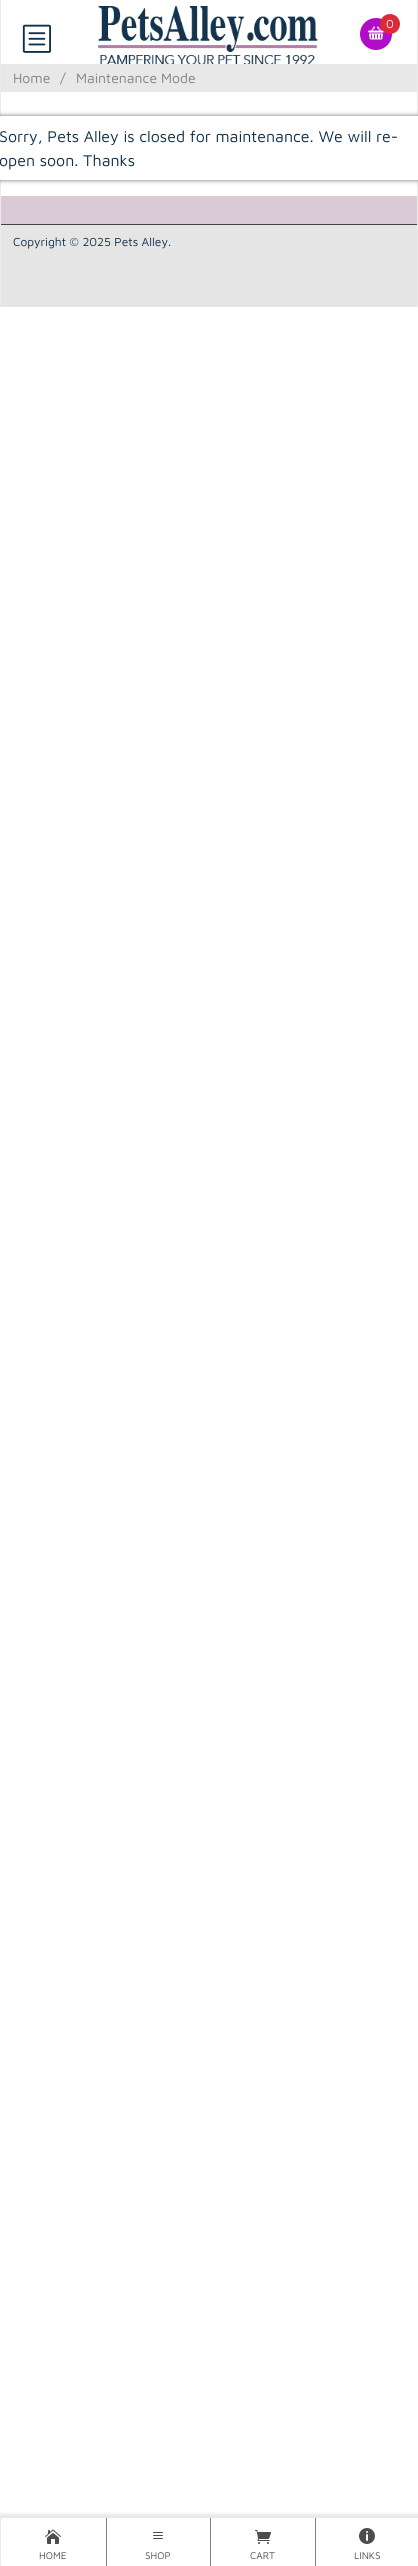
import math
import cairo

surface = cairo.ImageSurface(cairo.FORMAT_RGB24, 418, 2566)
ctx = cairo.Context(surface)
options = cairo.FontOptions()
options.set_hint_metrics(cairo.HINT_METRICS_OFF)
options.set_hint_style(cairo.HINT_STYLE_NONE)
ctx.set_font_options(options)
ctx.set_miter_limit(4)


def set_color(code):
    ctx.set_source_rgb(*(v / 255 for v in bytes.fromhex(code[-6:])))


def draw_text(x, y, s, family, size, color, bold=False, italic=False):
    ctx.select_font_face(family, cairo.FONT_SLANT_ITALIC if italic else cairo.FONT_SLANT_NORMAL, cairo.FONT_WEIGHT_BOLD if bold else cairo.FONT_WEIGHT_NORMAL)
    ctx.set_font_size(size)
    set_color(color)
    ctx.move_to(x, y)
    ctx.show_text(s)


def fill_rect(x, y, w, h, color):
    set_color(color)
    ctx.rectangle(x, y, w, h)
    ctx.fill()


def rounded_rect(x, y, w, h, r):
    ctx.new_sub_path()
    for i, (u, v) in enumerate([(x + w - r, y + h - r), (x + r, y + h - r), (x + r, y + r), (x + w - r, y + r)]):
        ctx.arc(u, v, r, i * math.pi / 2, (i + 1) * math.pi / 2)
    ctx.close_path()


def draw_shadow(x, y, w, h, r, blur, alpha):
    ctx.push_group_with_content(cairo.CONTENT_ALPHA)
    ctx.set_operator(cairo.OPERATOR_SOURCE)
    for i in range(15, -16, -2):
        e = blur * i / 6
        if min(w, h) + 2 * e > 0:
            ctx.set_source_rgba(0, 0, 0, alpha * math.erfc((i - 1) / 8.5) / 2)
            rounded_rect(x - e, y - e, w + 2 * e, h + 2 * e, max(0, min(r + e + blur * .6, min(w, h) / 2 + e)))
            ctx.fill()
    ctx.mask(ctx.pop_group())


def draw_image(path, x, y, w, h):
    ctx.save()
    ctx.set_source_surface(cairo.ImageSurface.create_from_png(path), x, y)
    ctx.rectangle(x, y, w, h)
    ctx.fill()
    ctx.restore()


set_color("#ffffff")
ctx.paint()
fill_rect(417, 0, 1, 307, "#ebebeb")
fill_rect(0, 0, 1, 307, "#ebebeb")
draw_image("assets/img1.png", 22, 24, 29, 29)
draw_image("assets/img2.png", 98, 6, 220, 58)
set_color("#b10dc9")
ctx.arc(376, 34, 16, 0, 2 * math.pi)
ctx.fill()
draw_image("assets/img3.png", 368, 26, 16, 14)
set_color("#dd293a")
ctx.arc(390, 24, 10, 0, 2 * math.pi)
ctx.fill()
draw_text(386, 28, "0", "Maven Pro", 12, "#ffffff")
fill_rect(1, 64, 416, 28, "#e8e8e8")
draw_text(13, 83, "Home", "Maven Pro", 14, "#818181")
draw_text(60, 83, "/", "Maven Pro", 14, "#818181")
draw_text(76, 83, "Maintenance Mode", "Maven Pro", 14, "#818181")
set_color("#444444")
draw_shadow(-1, 116, 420, 64, 0, 2.5, 0.75)
fill_rect(0, 116, 418, 64, "#ffffff")
draw_text(-1, 142, "Sorry, Pets Alley is closed for maintenance. We will re-", "Maven Pro", 16, "#11304b")
draw_text(-1, 166, "open soon. Thanks", "Maven Pro", 16, "#11304b")
fill_rect(1, 196, 416, 28, "#d9cad5")
fill_rect(1, 225, 416, 82, "#e5e5e5")
fill_rect(1, 224, 416, 1, "#414141")
draw_text(13, 246, "Copyright © 2025 Pets Alley.", "Maven Pro", 12, "#11304b")
ctx.save()
ctx.set_fill_rule(cairo.FILL_RULE_EVEN_ODD)
ctx.new_path()
ctx.move_to(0, 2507)
ctx.line_to(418, 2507)
ctx.line_to(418, 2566)
ctx.line_to(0, 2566)
ctx.close_path()
ctx.move_to(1, 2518)
ctx.line_to(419, 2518)
ctx.line_to(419, 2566)
ctx.line_to(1, 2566)
ctx.close_path()
ctx.clip()
set_color("#000000")
draw_shadow(-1, 2514, 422, 52, 0, 2, 0.1)
ctx.restore()
draw_image("assets/img4.png", 45, 2529, 16, 15)
draw_text(39, 2559, "HOME", "Maven Pro", 10, "#4d4d4d")
fill_rect(106, 2518, 1, 48, "#818181")
draw_image("assets/img5.png", 153, 2532, 10, 7)
draw_text(145, 2559, "SHOP", "Maven Pro", 10, "#4d4d4d")
fill_rect(210, 2518, 1, 48, "#818181")
draw_image("assets/img6.png", 255, 2530, 16, 14)
draw_text(250, 2559, "CART", "Maven Pro", 10, "#4d4d4d")
fill_rect(315, 2518, 1, 48, "#818181")
draw_image("assets/img7.png", 359, 2528, 16, 16)
draw_text(354, 2559, "LINKS", "Maven Pro", 10, "#4d4d4d")
surface.write_to_png("output.png")
